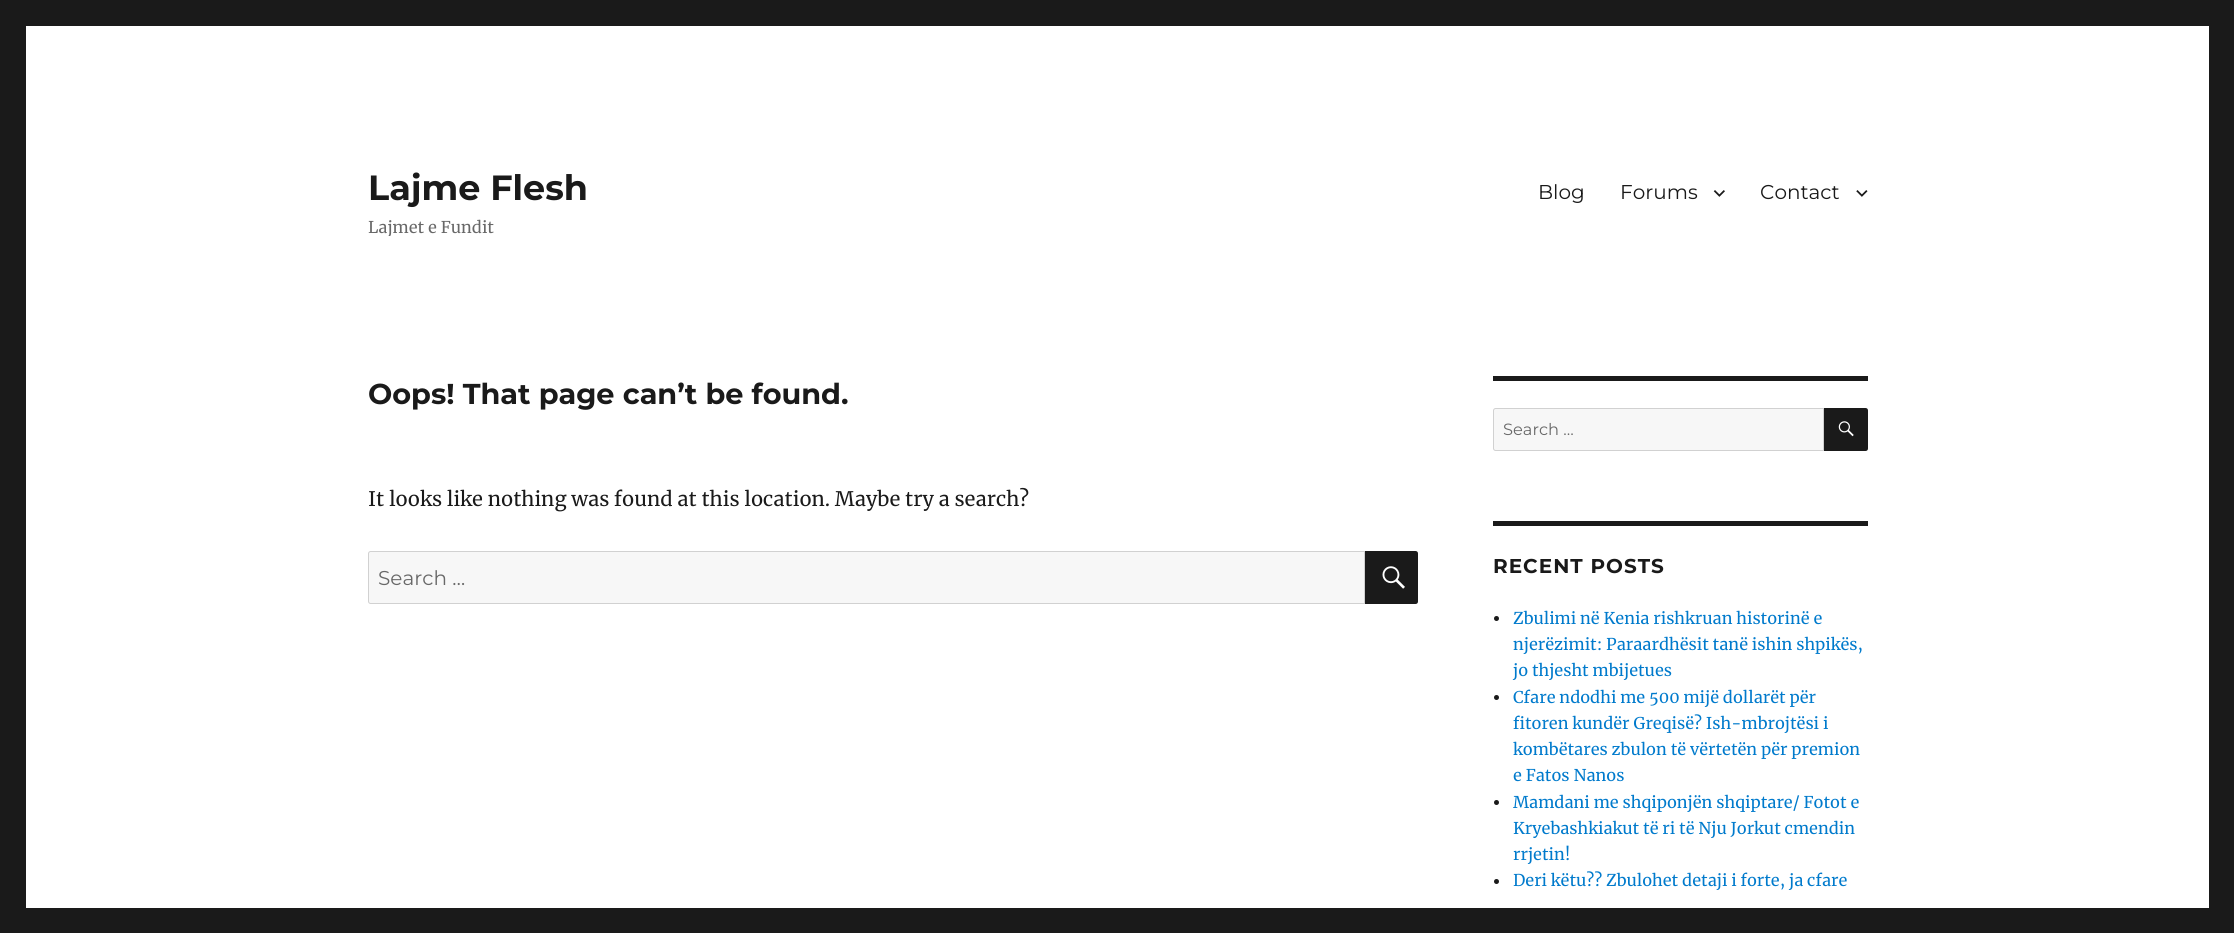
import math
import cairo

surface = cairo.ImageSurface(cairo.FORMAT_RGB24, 2234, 933)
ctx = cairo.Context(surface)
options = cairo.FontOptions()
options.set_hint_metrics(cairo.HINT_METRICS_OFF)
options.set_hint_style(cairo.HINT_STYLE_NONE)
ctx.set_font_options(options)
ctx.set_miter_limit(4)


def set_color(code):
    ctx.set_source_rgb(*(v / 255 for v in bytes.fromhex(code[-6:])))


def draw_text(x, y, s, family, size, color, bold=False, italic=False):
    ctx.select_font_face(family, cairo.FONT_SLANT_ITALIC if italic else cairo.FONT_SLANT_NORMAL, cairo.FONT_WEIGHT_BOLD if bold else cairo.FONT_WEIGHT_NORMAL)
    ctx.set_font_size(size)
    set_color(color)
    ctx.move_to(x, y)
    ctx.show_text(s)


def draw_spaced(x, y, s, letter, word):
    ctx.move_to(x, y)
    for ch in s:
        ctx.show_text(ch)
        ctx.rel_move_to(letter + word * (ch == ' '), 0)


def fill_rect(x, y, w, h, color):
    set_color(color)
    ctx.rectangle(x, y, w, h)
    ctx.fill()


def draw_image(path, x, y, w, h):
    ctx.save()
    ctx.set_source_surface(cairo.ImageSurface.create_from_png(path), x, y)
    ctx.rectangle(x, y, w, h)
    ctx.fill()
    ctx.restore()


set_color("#1a1a1a")
ctx.paint()
fill_rect(26, 26, 2183, 882, "#ffffff")
draw_text(368, 200, "Lajme Flesh", "Montserrat Thin", 35, "#1a1a1a")
ctx.save()
ctx.rectangle(368, 166, 220, 70)
ctx.clip()
draw_text(368, 233, "Lajmet e Fundit", "Merriweather", 16.25, "#686868")
ctx.restore()
draw_text(1538, 199, "Blog", "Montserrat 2 Thin", 20, "#1a1a1a")
draw_text(1620, 199, "Forums", "Montserrat 2 Thin", 20, "#1a1a1a")
draw_image("assets/img1.png", 1713, 190, 12, 7)
draw_text(1760, 199, "Contact", "Montserrat 2 Thin", 20, "#1a1a1a")
draw_image("assets/img2.png", 1856, 190, 12, 7)
draw_text(368, 404, "Oops! That page can’t be found.", "Montserrat Thin", 28.75, "#1a1a1a")
draw_text(368, 506, "It looks like nothing was found at this location. Maybe try a search?", "Merriweather", 20, "#1a1a1a")
set_color("#f7f7f7")
ctx.new_path()
ctx.move_to(370.5, 551.5)
ctx.line_to(1364.5, 551.5)
ctx.line_to(1364.5, 603.5)
ctx.line_to(370.5, 603.5)
ctx.curve_to(369.5, 603.5, 368.5, 602.5, 368.5, 601.5)
ctx.line_to(368.5, 553.5)
ctx.curve_to(368.5, 552.5, 369.5, 551.5, 370.5, 551.5)
ctx.close_path()
ctx.fill_preserve()
set_color("#d1d1d1")
ctx.set_line_width(1)
ctx.stroke()
draw_text(378, 585, "Search …", "Montserrat 2 Thin", 20, "#686868")
set_color("#1a1a1a")
ctx.new_path()
ctx.move_to(1365, 551)
ctx.line_to(1415.5, 551)
ctx.curve_to(1417, 551, 1418, 552, 1418, 553.5)
ctx.line_to(1418, 601.5)
ctx.curve_to(1418, 603, 1417, 604, 1415.5, 604)
ctx.line_to(1365, 604)
ctx.close_path()
ctx.fill()
draw_image("assets/img3.png", 1382, 566, 23, 23)
fill_rect(1493, 376, 375, 5, "#1a1a1a")
set_color("#f7f7f7")
ctx.new_path()
ctx.move_to(1495.5, 408.5)
ctx.line_to(1823.5, 408.5)
ctx.line_to(1823.5, 450.5)
ctx.line_to(1495.5, 450.5)
ctx.curve_to(1494.5, 450.5, 1493.5, 449.5, 1493.5, 448.5)
ctx.line_to(1493.5, 410.5)
ctx.curve_to(1493.5, 409.5, 1494.5, 408.5, 1495.5, 408.5)
ctx.close_path()
ctx.fill_preserve()
set_color("#d1d1d1")
ctx.stroke()
draw_text(1503, 435, "Search …", "Montserrat 2 Thin", 16.25, "#686868")
set_color("#1a1a1a")
ctx.new_path()
ctx.move_to(1824, 408)
ctx.line_to(1865.5, 408)
ctx.curve_to(1867, 408, 1868, 409, 1868, 410.5)
ctx.line_to(1868, 448.5)
ctx.curve_to(1868, 450, 1867, 451, 1865.5, 451)
ctx.line_to(1824, 451)
ctx.close_path()
ctx.fill()
draw_image("assets/img4.png", 1838, 421, 16, 16)
fill_rect(1493, 521, 375, 5, "#1a1a1a")
ctx.select_font_face("Montserrat Thin")
ctx.set_font_size(20)
draw_spaced(1493, 573, "RECENT POSTS", 1, 0)
ctx.new_path()
ctx.arc(1496.5, 618.5, 2.5, 0, 2 * math.pi)
ctx.fill()
draw_text(1513, 624, "Zbulimi në Kenia rishkruan historinë e", "Merriweather", 16.25, "#007acc")
draw_text(1513, 650, "njerëzimit: Paraardhësit tanë ishin shpikës,", "Merriweather", 16.25, "#007acc")
draw_text(1513, 676, "jo thjesht mbijetues", "Merriweather", 16.25, "#007acc")
set_color("#1a1a1a")
ctx.new_path()
ctx.arc(1496.5, 697.5, 2.5, 0, 2 * math.pi)
ctx.fill()
draw_text(1513, 703, "Cfare ndodhi me 500 mijë dollarët për", "Merriweather", 16.25, "#007acc")
draw_text(1513, 729, "fitoren kundër Greqisë? Ish-mbrojtësi i", "Merriweather", 16.25, "#007acc")
draw_text(1513, 755, "kombëtares zbulon të vërtetën për premion", "Merriweather", 16.25, "#007acc")
draw_text(1513, 781, "e Fatos Nanos", "Merriweather", 16.25, "#007acc")
set_color("#1a1a1a")
ctx.new_path()
ctx.arc(1496.5, 802.5, 2.5, 0, 2 * math.pi)
ctx.fill()
draw_text(1513, 808, "Mamdani me shqiponjën shqiptare/ Fotot e", "Merriweather", 16.25, "#007acc")
draw_text(1513, 834, "Kryebashkiakut të ri të Nju Jorkut cmendin", "Merriweather", 16.25, "#007acc")
draw_text(1513, 860, "rrjetin!", "Merriweather", 16.25, "#007acc")
set_color("#1a1a1a")
ctx.new_path()
ctx.arc(1496.5, 881.5, 2.5, 0, 2 * math.pi)
ctx.fill()
draw_text(1513, 886, "Deri këtu?? Zbulohet detaji i forte, ja cfare", "Merriweather", 16.25, "#007acc")
surface.write_to_png("output.png")
